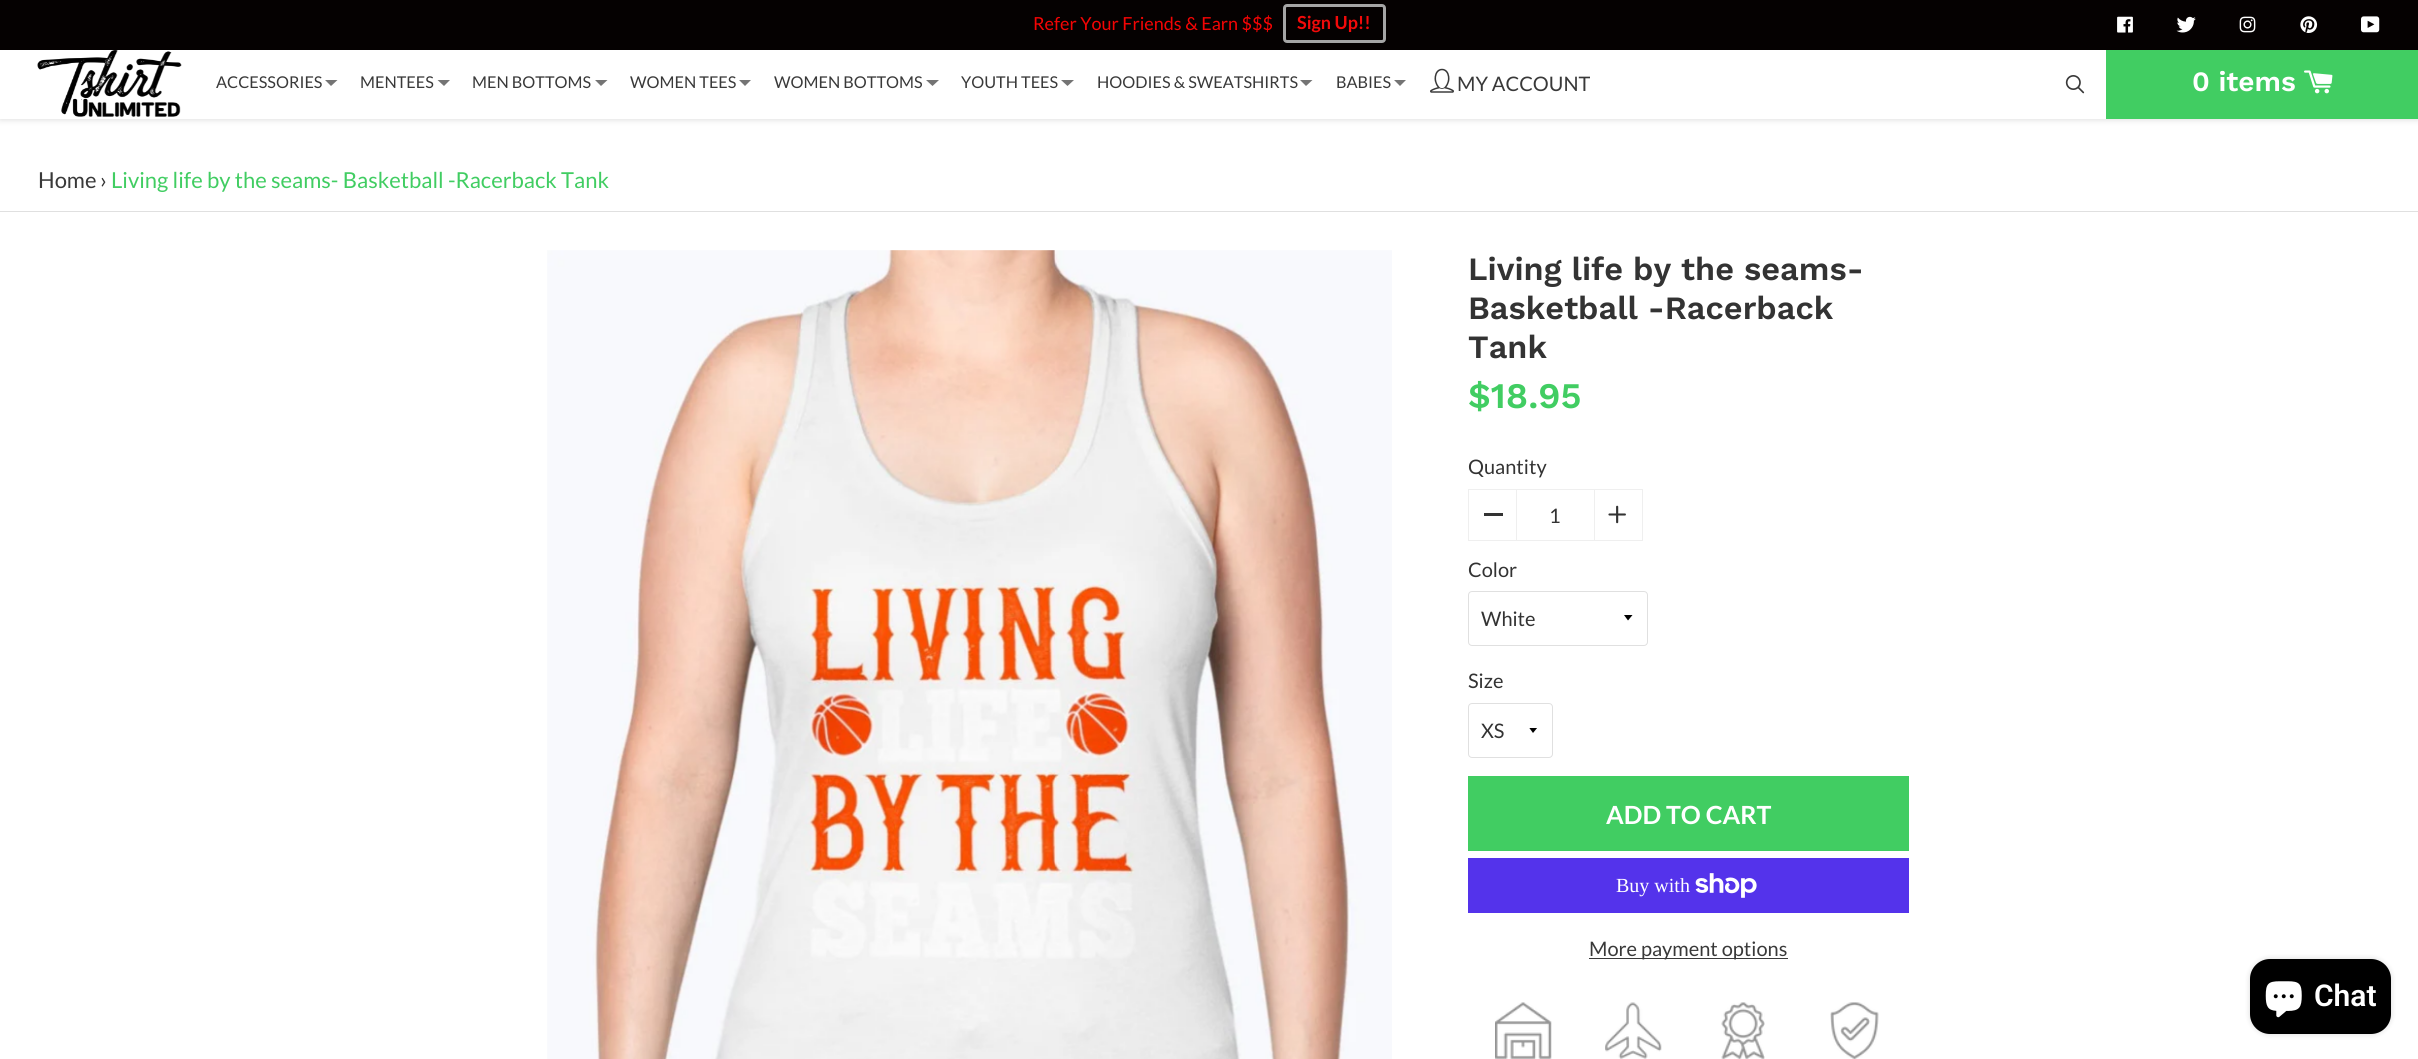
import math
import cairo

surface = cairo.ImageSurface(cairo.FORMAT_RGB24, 2418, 1059)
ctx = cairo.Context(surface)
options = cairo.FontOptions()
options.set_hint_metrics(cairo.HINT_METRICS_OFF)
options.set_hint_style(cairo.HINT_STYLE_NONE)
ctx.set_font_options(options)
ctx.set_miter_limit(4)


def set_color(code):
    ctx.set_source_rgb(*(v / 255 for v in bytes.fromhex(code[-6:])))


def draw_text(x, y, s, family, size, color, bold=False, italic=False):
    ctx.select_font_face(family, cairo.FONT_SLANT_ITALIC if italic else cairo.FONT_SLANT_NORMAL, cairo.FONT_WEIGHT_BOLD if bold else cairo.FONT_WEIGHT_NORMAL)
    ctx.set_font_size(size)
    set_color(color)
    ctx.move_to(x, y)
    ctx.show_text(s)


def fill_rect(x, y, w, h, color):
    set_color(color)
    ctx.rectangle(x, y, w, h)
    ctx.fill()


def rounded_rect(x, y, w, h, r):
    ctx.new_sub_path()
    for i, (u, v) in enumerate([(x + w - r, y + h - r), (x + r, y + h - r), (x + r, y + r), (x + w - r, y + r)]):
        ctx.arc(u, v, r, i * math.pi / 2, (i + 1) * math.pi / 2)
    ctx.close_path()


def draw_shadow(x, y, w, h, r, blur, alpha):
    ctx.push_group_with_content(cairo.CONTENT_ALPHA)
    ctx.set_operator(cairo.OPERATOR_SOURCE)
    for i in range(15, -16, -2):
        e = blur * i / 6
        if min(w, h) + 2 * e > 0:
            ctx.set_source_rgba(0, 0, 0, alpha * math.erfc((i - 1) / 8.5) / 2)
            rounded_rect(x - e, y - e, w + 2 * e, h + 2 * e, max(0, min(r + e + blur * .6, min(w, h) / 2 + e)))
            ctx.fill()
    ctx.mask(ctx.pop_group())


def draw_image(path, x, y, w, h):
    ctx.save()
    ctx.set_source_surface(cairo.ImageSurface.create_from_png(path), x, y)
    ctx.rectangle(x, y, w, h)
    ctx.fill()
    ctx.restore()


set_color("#ffffff")
ctx.paint()
set_color("#e0e0e0")
draw_shadow(0, 51, 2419, 69, 0, 3, 1)
fill_rect(0, 0, 2418, 50, "#050101")
draw_text(1033, 30, "Refer Your Friends & Earn $$$", "Lato", 18, "#f50404")
rounded_rect(1284.5, 5.5, 100, 36, 2.5)
set_color("#a5a5a5")
ctx.set_line_width(3)
ctx.stroke()
draw_text(1297, 29, "Sign Up!!", "Lato", 18, "#f30a0a", bold=True)
draw_image("assets/img1.png", 2117, 16, 16, 17)
draw_image("assets/img2.png", 2176, 16, 20, 17)
draw_image("assets/img3.png", 2239, 16, 17, 17)
draw_image("assets/img4.png", 2300, 16, 18, 17)
draw_image("assets/img5.png", 2361, 16, 19, 17)
fill_rect(0, 50, 2106, 69, "#ffffff")
draw_image("assets/img6.png", 37, 50, 145, 67)
draw_text(216, 88, "ACCESSORIES", "Lato", 16.25, "#393939")
set_color("#747474")
ctx.new_path()
ctx.move_to(325, 80)
ctx.line_to(337.5, 80)
ctx.line_to(331, 86)
ctx.close_path()
ctx.fill()
draw_text(360, 88, "MENTEES", "Lato", 16.25, "#393939")
set_color("#747474")
ctx.new_path()
ctx.move_to(437.5, 80)
ctx.line_to(450, 80)
ctx.line_to(444, 86)
ctx.close_path()
ctx.fill()
draw_text(472, 88, "MEN BOTTOMS", "Lato", 16.25, "#393939")
set_color("#747474")
ctx.new_path()
ctx.move_to(595, 80)
ctx.line_to(607.5, 80)
ctx.line_to(601, 86)
ctx.close_path()
ctx.fill()
draw_text(630, 88, "WOMEN TEES", "Lato", 16.25, "#393939")
set_color("#747474")
ctx.new_path()
ctx.move_to(739, 80)
ctx.line_to(751, 80)
ctx.line_to(745, 86)
ctx.close_path()
ctx.fill()
draw_text(774, 88, "WOMEN BOTTOMS", "Lato", 16.25, "#393939")
set_color("#747474")
ctx.new_path()
ctx.move_to(926, 80)
ctx.line_to(939, 80)
ctx.line_to(932.5, 86)
ctx.close_path()
ctx.fill()
draw_text(961, 88, "YOUTH TEES", "Lato", 16.25, "#393939")
set_color("#747474")
ctx.new_path()
ctx.move_to(1061, 80)
ctx.line_to(1074, 80)
ctx.line_to(1067.5, 86)
ctx.close_path()
ctx.fill()
draw_text(1097, 88, "HOODIES & SWEATSHIRTS", "Lato", 16.25, "#393939")
set_color("#747474")
ctx.new_path()
ctx.move_to(1300, 80)
ctx.line_to(1312.5, 80)
ctx.line_to(1306, 86)
ctx.close_path()
ctx.fill()
draw_text(1336, 88, "BABIES", "Lato", 16.25, "#393939")
set_color("#747474")
ctx.new_path()
ctx.move_to(1394, 80)
ctx.line_to(1406, 80)
ctx.line_to(1400, 86)
ctx.close_path()
ctx.fill()
draw_image("assets/img7.png", 1430, 68, 24, 25)
draw_text(1457, 91, "MY ACCOUNT", "Lato", 20, "#393939")
draw_image("assets/img8.png", 2065, 75, 20, 19)
fill_rect(2106, 50, 312, 69, "#41cd62")
draw_text(2192, 91, "0 items", "Work Sans SemiBold", 28, "#ffffff")
draw_image("assets/img9.png", 2304, 70, 29, 24)
fill_rect(0, 211, 2418, 1, "#e0e0e0")
draw_text(38, 188, "Home", "Lato", 22, "#393939")
draw_text(100, 188, "›", "Lato", 22, "#333333")
draw_text(111, 188, "Living life by the seams- Basketball -Racerback Tank", "Lato", 22, "#41cd62")
draw_image("assets/img10.png", 547, 250, 845, 809)
draw_text(1468, 280, "Living life by the seams-", "Work Sans SemiBold", 32.5, "#333333")
draw_text(1468, 319, "Basketball -Racerback", "Work Sans SemiBold", 32.5, "#333333")
draw_text(1468, 358, "Tank", "Work Sans SemiBold", 32.5, "#333333")
draw_text(1468, 408, "$18.95", "Work Sans SemiBold", 36, "#41cd62")
draw_text(1468, 474, "Quantity", "Lato", 20, "#333333")
ctx.rectangle(1468.5, 489.5, 174, 51)
set_color("#efefef")
ctx.set_line_width(1)
ctx.stroke()
fill_rect(1484, 513, 19, 3, "#333333")
fill_rect(1594, 490, 1, 50, "#efefef")
fill_rect(1516, 490, 1, 50, "#efefef")
draw_text(1549, 523, "1", "Lato", 20, "#333333")
draw_image("assets/img11.png", 1608, 505, 18, 19)
draw_text(1468, 577, "Color", "Lato", 20, "#333333")
set_color("#000000")
ctx.new_path()
ctx.move_to(1624, 615)
ctx.line_to(1628, 620.5)
ctx.line_to(1632.5, 615)
ctx.close_path()
ctx.fill()
rounded_rect(1468.5, 591.5, 179, 54, 3.5)
set_color("#e0e0e0")
ctx.stroke()
draw_text(1481, 626, "White", "Lato", 20, "#333333")
draw_text(1468, 688, "Size", "Lato", 20, "#333333")
ctx.save()
ctx.rectangle(1529, 728, 10, 6)
ctx.clip()
set_color("#000000")
ctx.new_path()
ctx.move_to(1529, 727.5)
ctx.line_to(1533, 733)
ctx.line_to(1537.5, 727.5)
ctx.close_path()
ctx.fill()
ctx.restore()
rounded_rect(1468.5, 703.5, 84, 54, 3.5)
set_color("#e0e0e0")
ctx.stroke()
draw_text(1481, 738, "XS", "Lato", 20, "#333333")
fill_rect(1468, 776, 441, 75, "#41cd62")
draw_text(1606, 824, "ADD TO CART", "Lato", 25, "#ffffff", bold=True)
fill_rect(1468, 858, 441, 55, "#5433eb")
draw_text(1616, 892, "Buy with", "Liberation Serif", 20, "#ffffff")
draw_image("assets/img12.png", 1695, 873, 62, 25)
fill_rect(1589, 958, 199, 1, "#393939")
draw_text(1589, 956, "More payment options", "Lato", 20, "#393939")
draw_image("assets/img13.png", 1495, 1002, 57, 57)
draw_image("assets/img14.png", 1605, 1002, 57, 57)
draw_image("assets/img15.png", 1721, 1002, 44, 57)
draw_image("assets/img16.png", 1830, 1002, 49, 57)
set_color("#000000")
draw_shadow(2250, 959, 141, 75, 20, 3, 0.15)
set_color("#000000")
rounded_rect(2250, 959, 141, 75, 20)
ctx.fill()
draw_image("assets/img17.png", 2265, 981, 37, 37)
draw_text(2314, 1006, "Chat", "Roboto SemiBold", 30, "#ffffff")
surface.write_to_png("output.png")
